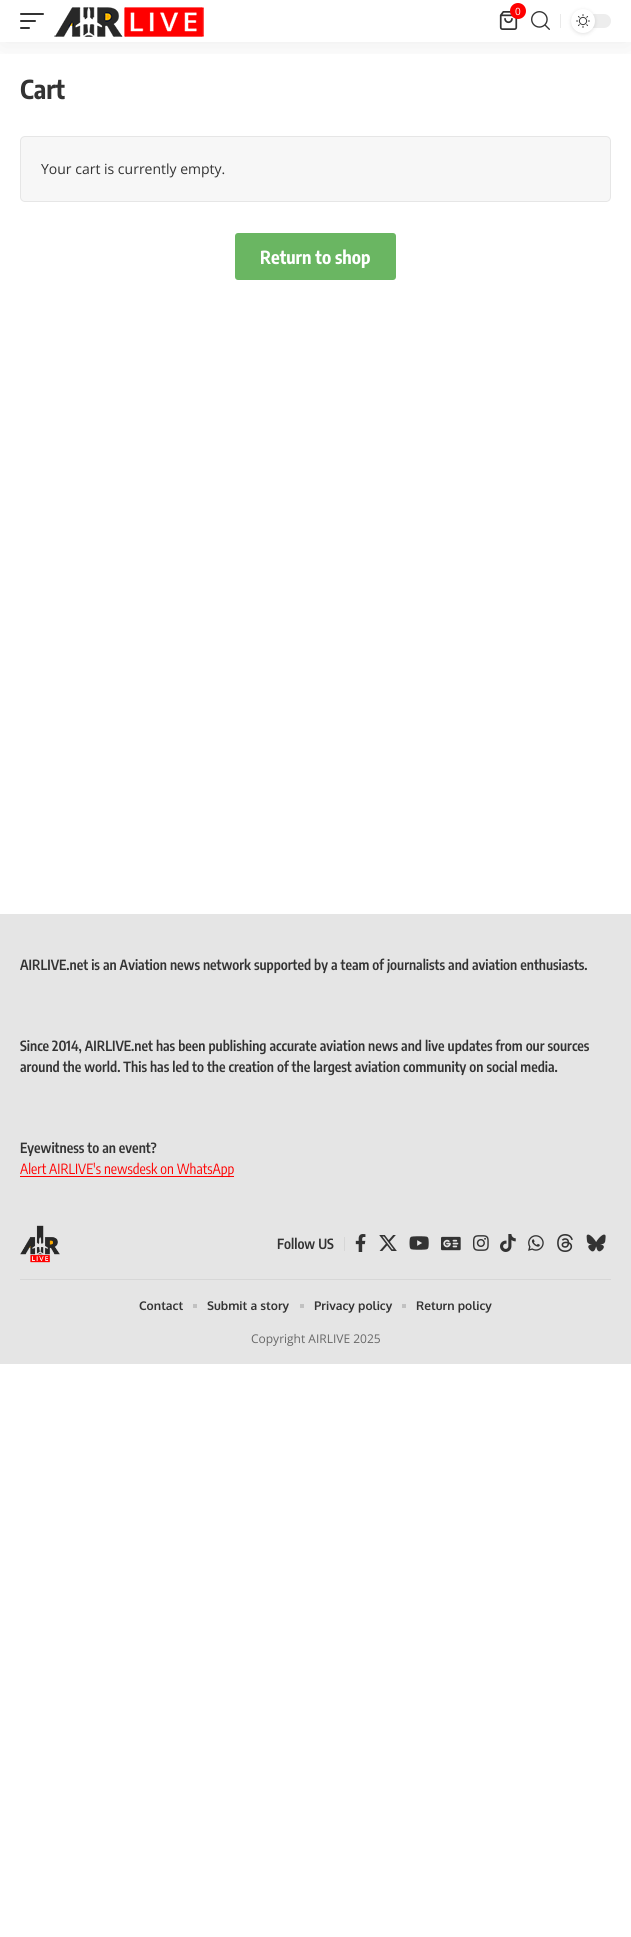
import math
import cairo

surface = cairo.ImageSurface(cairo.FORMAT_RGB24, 631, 1937)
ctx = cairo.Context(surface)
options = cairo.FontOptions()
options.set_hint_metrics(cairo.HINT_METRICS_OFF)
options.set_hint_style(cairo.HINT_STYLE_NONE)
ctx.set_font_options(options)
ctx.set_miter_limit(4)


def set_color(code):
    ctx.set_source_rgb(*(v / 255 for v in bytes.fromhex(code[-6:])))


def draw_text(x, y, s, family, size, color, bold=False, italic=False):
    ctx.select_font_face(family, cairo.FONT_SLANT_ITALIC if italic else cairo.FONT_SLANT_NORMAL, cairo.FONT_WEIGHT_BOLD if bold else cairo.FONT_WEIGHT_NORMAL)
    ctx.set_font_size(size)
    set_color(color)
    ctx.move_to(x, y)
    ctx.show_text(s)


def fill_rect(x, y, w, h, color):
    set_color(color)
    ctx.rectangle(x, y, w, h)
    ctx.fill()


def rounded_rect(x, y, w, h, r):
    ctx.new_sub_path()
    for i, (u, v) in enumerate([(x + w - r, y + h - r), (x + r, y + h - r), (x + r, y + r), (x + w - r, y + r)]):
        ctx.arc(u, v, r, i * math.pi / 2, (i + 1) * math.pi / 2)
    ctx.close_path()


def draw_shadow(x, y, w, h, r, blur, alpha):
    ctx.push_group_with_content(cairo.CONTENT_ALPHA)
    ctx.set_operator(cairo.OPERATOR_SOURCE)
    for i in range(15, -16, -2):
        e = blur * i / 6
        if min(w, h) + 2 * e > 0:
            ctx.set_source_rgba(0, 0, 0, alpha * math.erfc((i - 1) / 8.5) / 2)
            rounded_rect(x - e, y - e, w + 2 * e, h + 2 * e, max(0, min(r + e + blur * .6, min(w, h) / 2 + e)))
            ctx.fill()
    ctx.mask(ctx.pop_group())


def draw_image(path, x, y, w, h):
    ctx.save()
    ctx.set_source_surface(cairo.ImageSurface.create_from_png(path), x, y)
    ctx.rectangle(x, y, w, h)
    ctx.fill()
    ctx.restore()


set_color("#ffffff")
ctx.paint()
ctx.save()
ctx.rectangle(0, 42, 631, 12)
ctx.clip()
set_color("#000000")
draw_shadow(0, 4, 631, 42, 0, 15, 0.07)
ctx.restore()
set_color("#333333")
rounded_rect(20, 13, 24, 2, 1)
ctx.fill()
rounded_rect(20, 20, 16, 2, 1)
ctx.fill()
rounded_rect(20, 27, 10, 2, 1)
ctx.fill()
draw_image("assets/img1.png", 54, 7, 150, 30)
draw_image("assets/img2.png", 499, 11, 19, 19)
set_color("#ff0000")
ctx.arc(518, 11, 8, 0, 2 * math.pi)
ctx.fill()
draw_text(515, 15, "0", "Open Sans", 10, "#ffffff")
draw_image("assets/img3.png", 531, 11, 19, 19)
fill_rect(560, 14, 1, 14, "#eaeaea")
set_color("#ededed")
rounded_rect(571, 14, 40, 14, 7)
ctx.fill()
set_color("#000000")
draw_shadow(571, 10, 24, 24, 12, 2, 0.12)
set_color("#ffffff")
ctx.arc(583, 21, 12, 0, 2 * math.pi)
ctx.fill()
draw_image("assets/img4.png", 576, 14, 14, 14)
draw_text(20, 99, "Cart", "Encode Sans Condensed", 26, "#333333", bold=True)
set_color("#f7f7f7")
rounded_rect(20, 136, 591, 66, 5)
ctx.fill()
rounded_rect(20.5, 136.5, 590, 65, 4.5)
ctx.set_source_rgba(0.533, 0.533, 0.533, 0.15)
ctx.set_line_width(1)
ctx.stroke()
draw_text(41, 174, "Your cart is currently empty.", "Open Sans", 14, "#333333")
set_color("#6ab662")
rounded_rect(235, 233, 161, 47, 3)
ctx.fill()
draw_text(260, 264, "Return to shop", "Encode Sans Condensed", 18, "#ffffff", bold=True)
fill_rect(0, 914, 631, 450, "#e5e5e5")
draw_text(20, 970, "AIRLIVE.net is an Aviation news network supported by a team of journalists and aviation enthusiasts.", "Encode Sans Condensed SemiBold", 14, "#333333")
draw_text(20, 1051, "Since 2014, AIRLIVE.net has been publishing accurate aviation news and live updates from our sources", "Encode Sans Condensed SemiBold", 14, "#333333")
draw_text(20, 1072, "around the world. This has led to the creation of the largest aviation community on social media.", "Encode Sans Condensed SemiBold", 14, "#333333")
draw_text(20, 1153, "Eyewitness to an event?", "Encode Sans Condensed SemiBold", 14, "#333333")
fill_rect(20, 1176, 214, 1, "#ff0000")
draw_text(20, 1174, "Alert AIRLIVE's newsdesk on WhatsApp", "Encode Sans Condensed", 14, "#ff0000")
draw_image("assets/img5.png", 20, 1225, 40, 38)
fill_rect(344, 1237, 1, 14, "#d7d7d7")
draw_text(277, 1249, "Follow US", "Encode Sans Condensed SemiBold", 14, "#333333")
draw_image("assets/img6.png", 355, 1234, 11, 18)
draw_image("assets/img7.png", 379, 1235, 18, 16)
draw_image("assets/img8.png", 409, 1236, 20, 14)
draw_image("assets/img9.png", 441, 1236, 20, 15)
draw_image("assets/img10.png", 473, 1235, 16, 16)
draw_image("assets/img11.png", 500, 1234, 16, 18)
draw_image("assets/img12.png", 528, 1235, 16, 16)
draw_image("assets/img13.png", 557, 1234, 16, 18)
draw_image("assets/img14.png", 586, 1234, 20, 18)
fill_rect(20, 1279, 591, 1, "#d7d7d7")
draw_text(139, 1310, "Contact", "Oxygen", 12, "#333333", bold=True)
fill_rect(193, 1304, 4, 4, "#c1c1c1")
draw_text(207, 1310, "Submit a story", "Oxygen", 12, "#333333", bold=True)
fill_rect(300, 1304, 4, 4, "#c1c1c1")
draw_text(314, 1310, "Privacy policy", "Oxygen", 12, "#333333", bold=True)
fill_rect(402, 1304, 4, 4, "#c1c1c1")
draw_text(416, 1310, "Return policy", "Oxygen", 12, "#333333", bold=True)
draw_text(251, 1343, "Copyright AIRLIVE 2025", "Open Sans", 12, "#686868")
surface.write_to_png("output.png")
